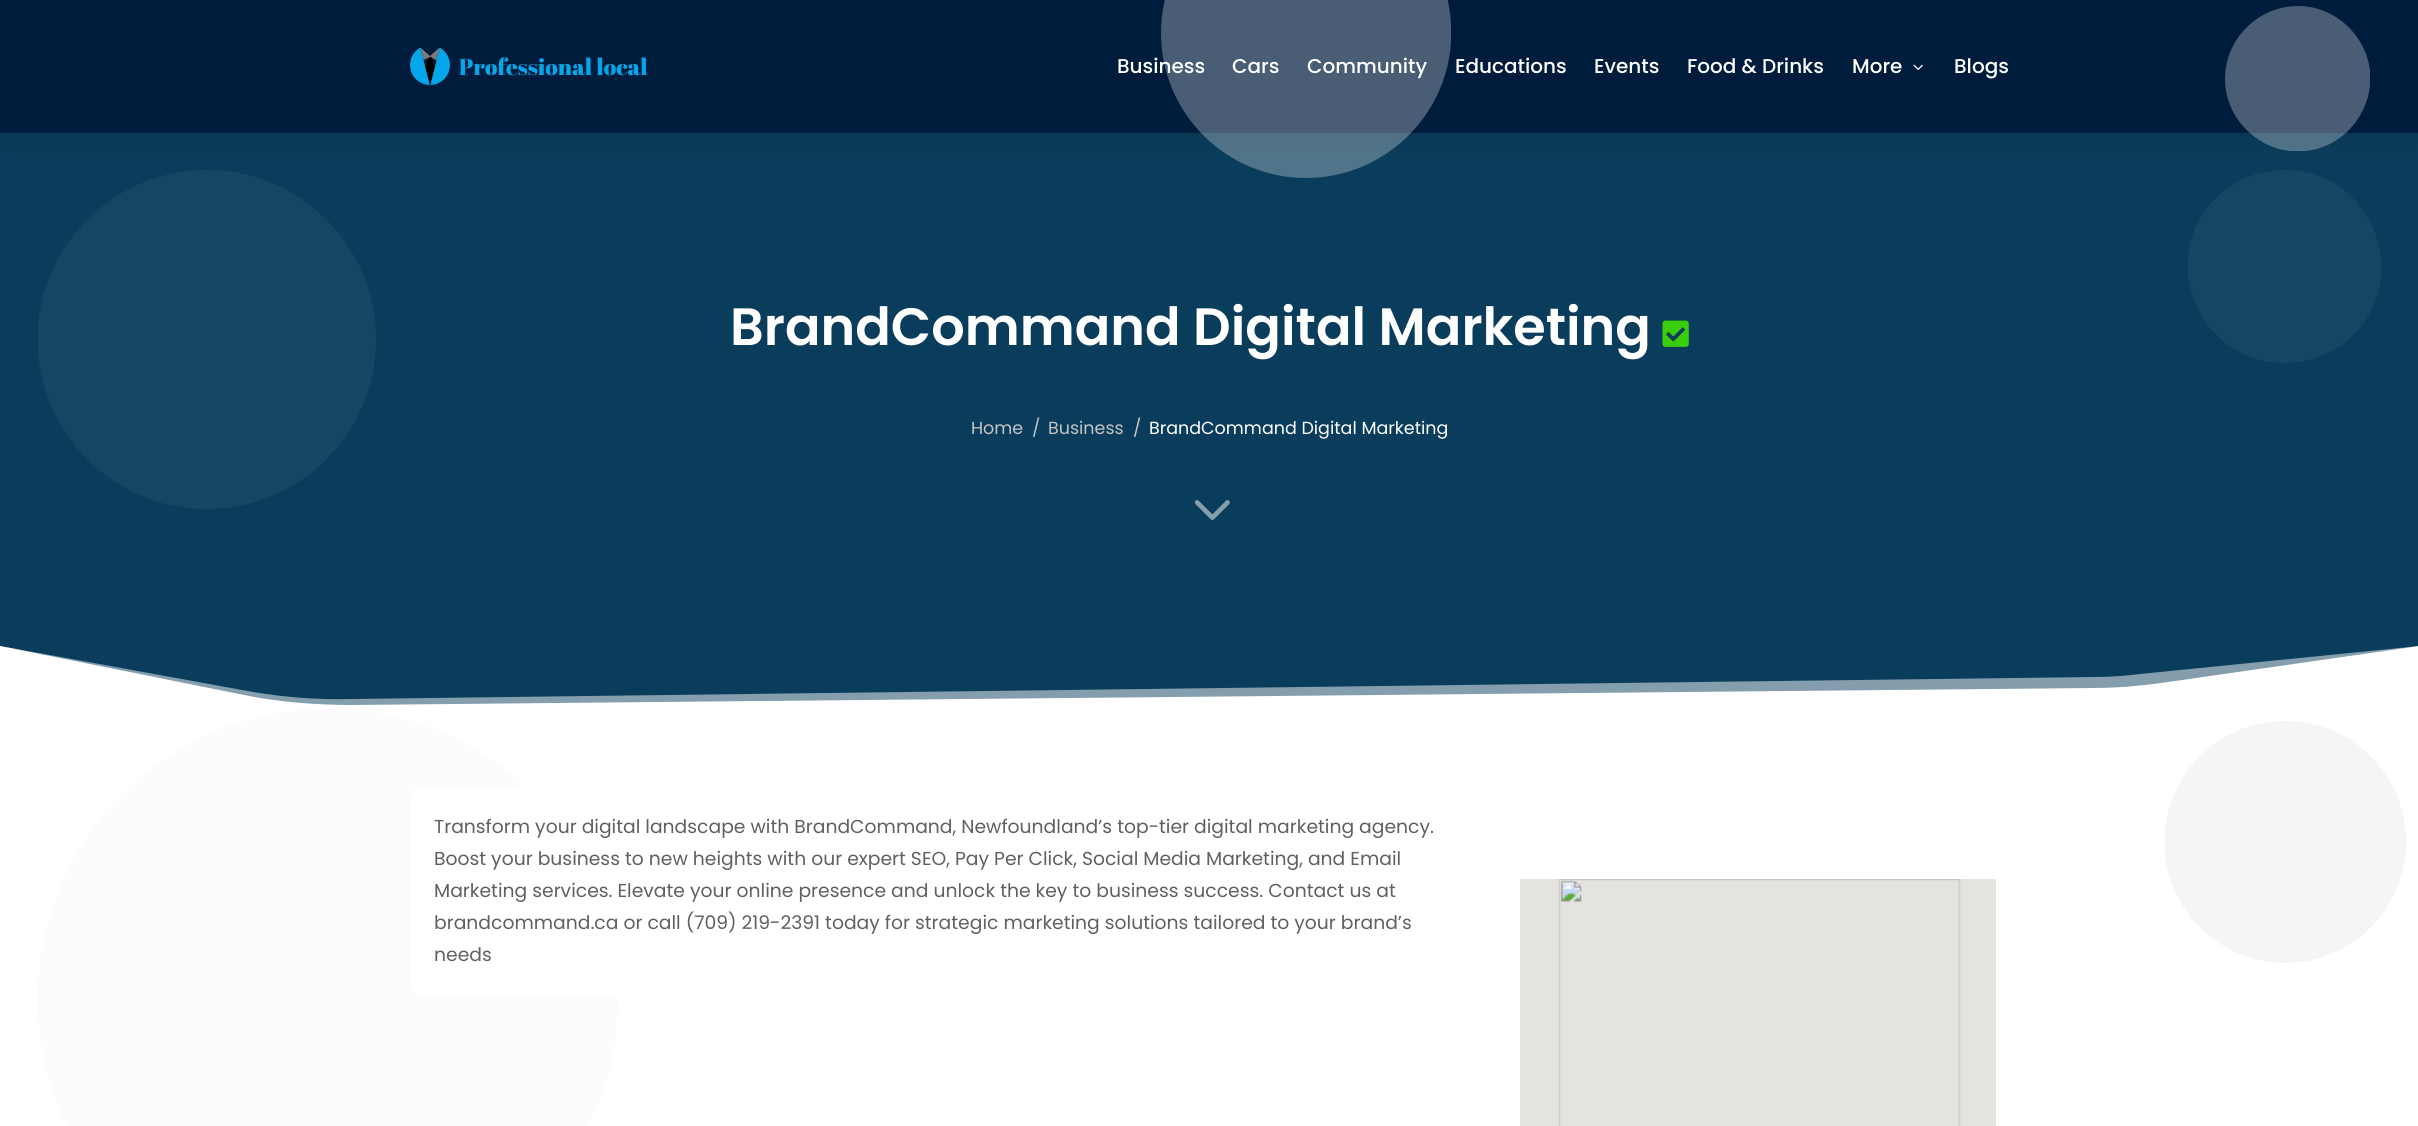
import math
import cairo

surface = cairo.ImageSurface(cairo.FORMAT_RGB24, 2418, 1126)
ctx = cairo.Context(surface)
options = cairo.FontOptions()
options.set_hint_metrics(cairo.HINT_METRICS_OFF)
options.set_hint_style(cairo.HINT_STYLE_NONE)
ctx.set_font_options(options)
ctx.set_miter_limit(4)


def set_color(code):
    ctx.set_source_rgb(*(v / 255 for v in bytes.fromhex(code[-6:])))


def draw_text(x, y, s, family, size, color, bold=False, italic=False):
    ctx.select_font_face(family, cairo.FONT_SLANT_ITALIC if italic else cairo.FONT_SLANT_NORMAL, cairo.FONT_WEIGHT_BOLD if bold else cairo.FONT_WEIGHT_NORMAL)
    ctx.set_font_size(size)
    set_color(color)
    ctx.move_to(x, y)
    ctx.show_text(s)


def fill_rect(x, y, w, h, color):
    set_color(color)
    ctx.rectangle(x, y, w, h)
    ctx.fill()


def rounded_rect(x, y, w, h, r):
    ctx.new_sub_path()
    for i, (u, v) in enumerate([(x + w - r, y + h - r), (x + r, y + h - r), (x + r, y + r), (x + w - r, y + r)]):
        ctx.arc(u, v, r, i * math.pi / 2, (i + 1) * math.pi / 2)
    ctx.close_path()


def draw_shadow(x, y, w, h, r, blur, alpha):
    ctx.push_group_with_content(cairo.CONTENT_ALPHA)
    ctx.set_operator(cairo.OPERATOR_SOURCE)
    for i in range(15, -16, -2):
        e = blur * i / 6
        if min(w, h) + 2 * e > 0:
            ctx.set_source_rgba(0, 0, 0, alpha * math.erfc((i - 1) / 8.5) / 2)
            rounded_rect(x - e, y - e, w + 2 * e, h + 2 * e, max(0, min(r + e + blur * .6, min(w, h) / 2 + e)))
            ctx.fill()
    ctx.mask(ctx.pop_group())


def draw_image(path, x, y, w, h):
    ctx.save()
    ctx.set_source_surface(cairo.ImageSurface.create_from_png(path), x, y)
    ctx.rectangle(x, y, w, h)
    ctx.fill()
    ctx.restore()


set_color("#ffffff")
ctx.paint()
fill_rect(0, 133, 2418, 567, "#0a3d5b")
set_color("#164663")
ctx.new_path()
ctx.move_to(207, 170)
ctx.curve_to(118, 170, 45, 239, 38, 326)
ctx.line_to(38, 352)
ctx.curve_to(45, 440, 118, 509, 207, 509)
ctx.curve_to(298, 509, 373, 436, 376, 345)
ctx.line_to(376, 334)
ctx.curve_to(373, 243, 298, 170, 207, 170)
ctx.close_path()
ctx.fill()
ctx.new_path()
ctx.move_to(2285, 170)
ctx.curve_to(2260, 170, 2236, 179, 2218, 196)
ctx.curve_to(2155, 255, 2196, 363, 2285, 363)
ctx.curve_to(2309, 363, 2333, 354, 2351, 337)
ctx.curve_to(2414, 279, 2373, 170, 2285, 170)
ctx.close_path()
ctx.fill()
set_color("#000000")
draw_shadow(8, 23, 2403, 117, 0, 11, 0.1)
fill_rect(0, 0, 2418, 133, "#001c3d")
ctx.set_source_rgba(0.961, 0.961, 0.961, 0.3)
ctx.new_path()
ctx.move_to(1451, 41)
ctx.curve_to(1447, 117, 1383, 178, 1306, 178)
ctx.curve_to(1226, 178, 1161, 113, 1161, 33)
ctx.curve_to(1161, -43, 1220, -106, 1294, -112)
ctx.line_to(1318, -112)
ctx.curve_to(1390, -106, 1447, -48, 1451, 24)
ctx.close_path()
ctx.fill()
ctx.new_path()
ctx.move_to(2298, 6)
ctx.curve_to(2335, 6, 2366, 35, 2370, 71)
ctx.line_to(2370, 86)
ctx.curve_to(2366, 120, 2339, 148, 2305, 151)
ctx.line_to(2290, 151)
ctx.curve_to(2254, 147, 2225, 116, 2225, 79)
ctx.curve_to(2225, 39, 2258, 6, 2298, 6)
ctx.close_path()
ctx.fill()
draw_image("assets/img1.png", 410, 47, 238, 38)
draw_text(1117, 73, "Business", "Poppins Medium", 20, "#ffffff")
draw_text(1232, 73, "Cars", "Poppins Medium", 20, "#ffffff")
draw_text(1307, 73, "Community", "Poppins Medium", 20, "#ffffff")
draw_text(1455, 73, "Educations", "Poppins Medium", 20, "#ffffff")
draw_text(1594, 73, "Events", "Poppins Medium", 20, "#ffffff")
draw_text(1687, 73, "Food & Drinks", "Poppins Medium", 20, "#ffffff")
draw_text(1852, 73, "More", "Poppins Medium", 20, "#ffffff")
draw_image("assets/img2.png", 1913, 64, 10, 6)
draw_text(1954, 73, "Blogs", "Poppins Medium", 20, "#ffffff")
draw_text(730, 345, "BrandCommand Digital Marketing", "Poppins SemiBold", 52.5, "#ffffff")
draw_image("assets/img3.png", 1662, 320, 27, 27)
draw_text(971, 434, "Home", "Poppins", 17.5, "#c4c4c4")
draw_text(1032, 434, "/", "Poppins", 17.5, "#c4c4c4")
draw_text(1048, 434, "Business", "Poppins", 17.5, "#c4c4c4")
draw_text(1133, 434, "/", "Poppins", 17.5, "#c4c4c4")
draw_text(1149, 434, "BrandCommand Digital Marketing", "Poppins", 17.5, "#ffffff")
draw_image("assets/img4.png", 1194, 500, 36, 20)
set_color("#859ead")
ctx.new_path()
ctx.move_to(351, 699)
ctx.line_to(2092, 677)
ctx.curve_to(2109, 677, 2125, 676, 2140, 674)
ctx.line_to(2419, 646)
ctx.line_to(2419, 709)
ctx.line_to(0, 709)
ctx.line_to(0, 646)
ctx.line_to(253, 692)
ctx.curve_to(283, 697, 317, 700, 351, 699)
ctx.close_path()
ctx.fill()
set_color("#ffffff")
ctx.new_path()
ctx.move_to(352, 705)
ctx.line_to(2092, 688)
ctx.curve_to(2116, 688, 2140, 686, 2161, 683)
ctx.line_to(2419, 646)
ctx.line_to(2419, 709)
ctx.line_to(0, 709)
ctx.line_to(0, 646)
ctx.line_to(249, 696)
ctx.curve_to(280, 702, 316, 705, 352, 705)
ctx.close_path()
ctx.fill()
set_color("#fcfcfe")
ctx.new_path()
ctx.move_to(38, 982)
ctx.curve_to(47, 835, 164, 718, 310, 709)
ctx.line_to(345, 709)
ctx.curve_to(497, 718, 618, 844, 618, 999)
ctx.curve_to(618, 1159, 488, 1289, 328, 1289)
ctx.curve_to(173, 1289, 47, 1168, 38, 1016)
ctx.close_path()
ctx.fill()
set_color("#ffffff")
rounded_rect(410, 786, 1050, 209, 13)
ctx.fill()
draw_text(434, 833, "Transform your digital landscape with BrandCommand, Newfoundland’s top-tier digital marketing agency.", "Poppins", 18.75, "#606060")
draw_text(434, 865, "Boost your business to new heights with our expert SEO, Pay Per Click, Social Media Marketing, and Email", "Poppins", 18.75, "#606060")
draw_text(434, 897, "Marketing services. Elevate your online presence and unlock the key to business success. Contact us at", "Poppins", 18.75, "#606060")
draw_text(434, 929, "brandcommand.ca or call (709) 219-2391 today for strategic marketing solutions tailored to your brand’s", "Poppins", 18.75, "#606060")
draw_text(434, 961, "needs", "Poppins", 18.75, "#606060")
draw_image("assets/img5.png", 1520, 879, 476, 247)
set_color("#f5f5f5")
ctx.new_path()
ctx.move_to(2165, 830)
ctx.curve_to(2171, 769, 2221, 722, 2283, 721)
ctx.line_to(2288, 721)
ctx.curve_to(2351, 722, 2402, 772, 2406, 834)
ctx.line_to(2406, 850)
ctx.curve_to(2402, 913, 2349, 963, 2285, 963)
ctx.curve_to(2223, 963, 2171, 915, 2165, 854)
ctx.close_path()
ctx.fill()
surface.write_to_png("output.png")
